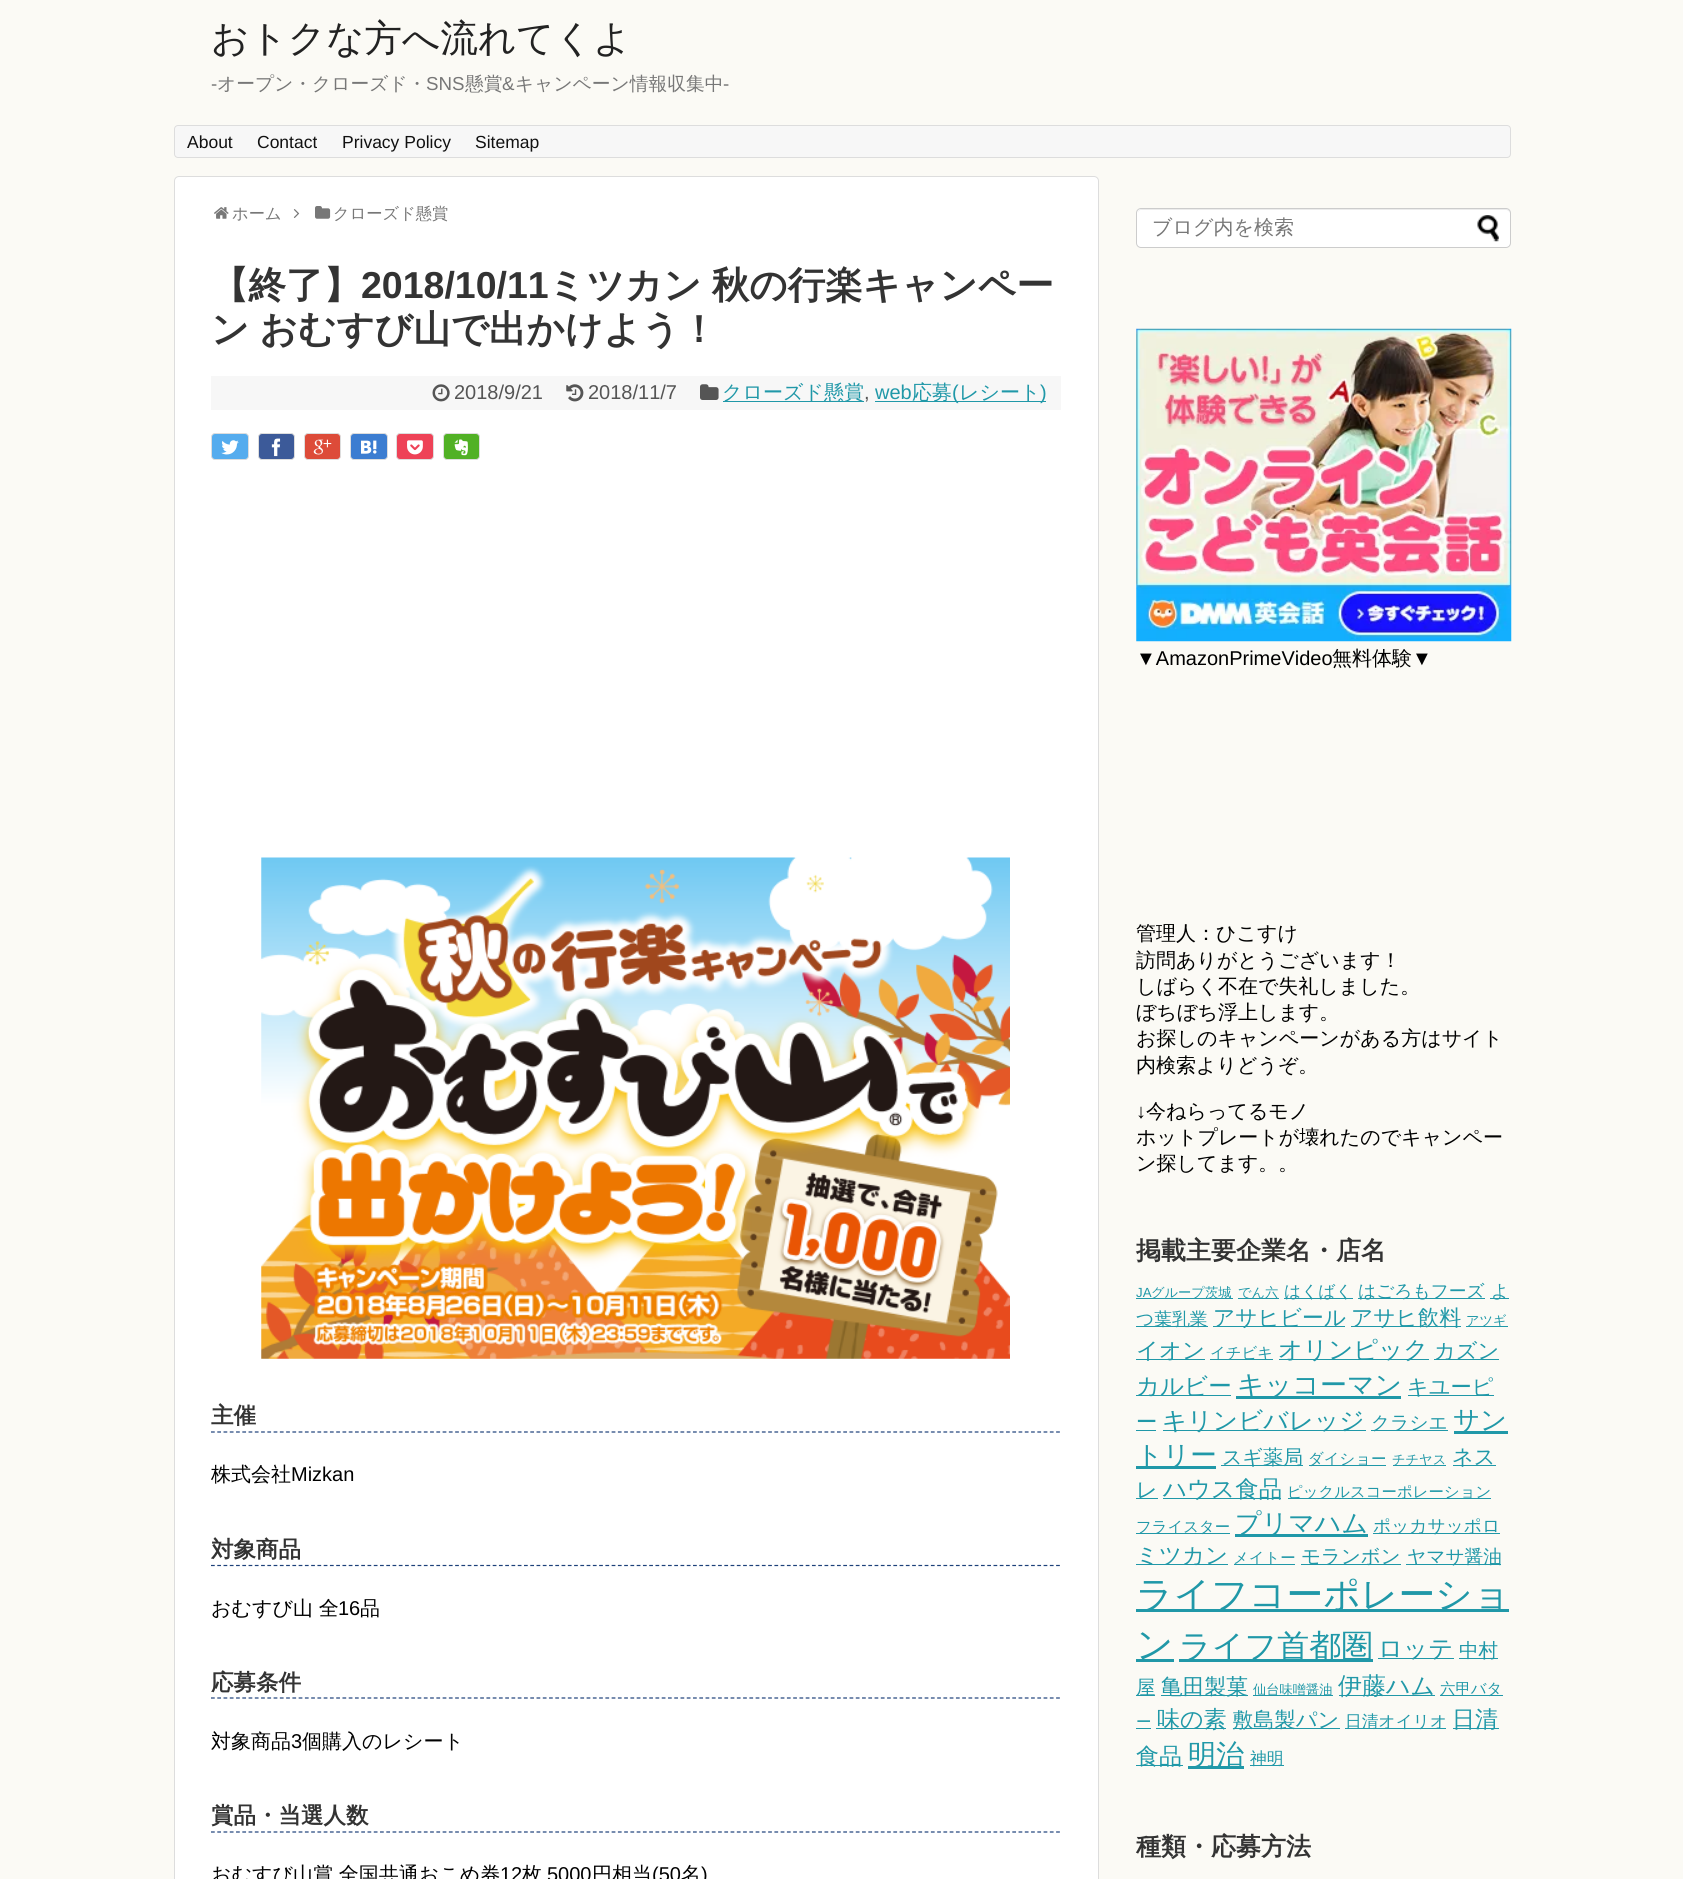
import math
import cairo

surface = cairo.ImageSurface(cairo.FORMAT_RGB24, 1683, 1879)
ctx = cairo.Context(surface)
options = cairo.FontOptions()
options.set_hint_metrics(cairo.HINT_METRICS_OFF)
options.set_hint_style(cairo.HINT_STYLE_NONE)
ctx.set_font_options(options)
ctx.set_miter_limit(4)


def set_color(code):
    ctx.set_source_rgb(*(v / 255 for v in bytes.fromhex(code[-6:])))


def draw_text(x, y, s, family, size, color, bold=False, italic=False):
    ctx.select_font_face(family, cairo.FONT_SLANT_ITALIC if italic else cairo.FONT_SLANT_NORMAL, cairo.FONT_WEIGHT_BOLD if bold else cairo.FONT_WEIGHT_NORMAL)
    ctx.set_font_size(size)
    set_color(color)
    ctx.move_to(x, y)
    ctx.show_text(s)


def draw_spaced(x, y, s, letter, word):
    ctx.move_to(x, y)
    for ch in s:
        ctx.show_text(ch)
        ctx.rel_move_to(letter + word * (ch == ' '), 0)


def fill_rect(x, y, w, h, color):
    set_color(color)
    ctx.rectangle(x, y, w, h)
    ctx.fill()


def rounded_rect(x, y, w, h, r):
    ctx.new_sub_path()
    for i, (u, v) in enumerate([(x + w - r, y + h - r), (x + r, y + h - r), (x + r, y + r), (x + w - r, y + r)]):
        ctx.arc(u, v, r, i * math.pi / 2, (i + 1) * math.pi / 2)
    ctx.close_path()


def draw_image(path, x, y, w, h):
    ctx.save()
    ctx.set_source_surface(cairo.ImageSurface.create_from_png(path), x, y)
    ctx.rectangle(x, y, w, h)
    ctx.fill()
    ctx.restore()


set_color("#fbfaf5")
ctx.paint()
draw_text(211, 51, "おトクな方へ流れてくよ", "WenQuanYi Zen Hei Medium", 37.5, "#222222")
draw_text(211, 90, "-", "Liberation Sans", 18.75, "#777777")
draw_text(217, 90, "オープン・クローズド・", "WenQuanYi Zen Hei Medium", 18.75, "#777777")
draw_text(426, 90, "SNS", "Liberation Sans", 18.75, "#777777")
draw_text(465, 90, "懸賞", "WenQuanYi Zen Hei Medium", 18.75, "#777777")
draw_text(502, 90, "&", "Liberation Sans", 18.75, "#777777")
draw_text(515, 90, "キャンペーン情報収集中", "WenQuanYi Zen Hei Medium", 18.75, "#777777")
draw_text(723, 90, "-", "Liberation Sans", 18.75, "#777777")
set_color("#f7f7f7")
rounded_rect(174.5, 125.5, 1336, 32, 3.5)
ctx.fill_preserve()
set_color("#dddddd")
ctx.set_line_width(1)
ctx.stroke()
draw_text(187, 148, "About", "Liberation Sans", 17.5, "#111111")
draw_text(257, 148, "Contact", "Liberation Sans", 17.5, "#111111")
draw_text(342, 148, "Privacy Policy", "Liberation Sans", 17.5, "#111111")
draw_text(475, 148, "Sitemap", "Liberation Sans", 17.5, "#111111")
set_color("#ffffff")
rounded_rect(174.5, 176.5, 924, 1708, 4.5)
ctx.fill_preserve()
set_color("#dddddd")
ctx.stroke()
draw_image("assets/img1.png", 214, 207, 15, 12)
draw_text(232, 219, "ホーム", "WenQuanYi Zen Hei Medium", 16.25, "#777777")
draw_image("assets/img2.png", 293, 209, 7, 9)
draw_image("assets/img3.png", 315, 206, 16, 13)
draw_text(333, 219, "クローズド懸賞", "WenQuanYi Zen Hei Medium", 16.25, "#777777")
draw_text(211, 298, "【終了】", "WenQuanYi Zen Hei", 37.5, "#333333", bold=True)
draw_text(361, 298, "2018/10/11", "Liberation Sans", 37.5, "#333333", bold=True)
ctx.select_font_face("WenQuanYi Zen Hei", cairo.FONT_SLANT_NORMAL, cairo.FONT_WEIGHT_BOLD)
draw_spaced(548, 298, "ミツカン 秋の行楽キャンペー", 0, -1)
draw_spaced(211, 342, "ン おむすび山で出かけよう！", 0, -1)
fill_rect(211, 376, 850, 34, "#f7f7f7")
draw_image("assets/img4.png", 432, 384, 18, 18)
draw_text(454, 399, "2018/9/21", "Liberation Sans", 20, "#555555")
draw_image("assets/img5.png", 566, 384, 18, 18)
draw_text(588, 399, "2018/11/7", "Liberation Sans", 20, "#555555")
draw_image("assets/img6.png", 700, 384, 19, 16)
fill_rect(723, 401, 141, 1, "#2098a8")
draw_text(722, 399, "クローズド懸賞", "WenQuanYi Zen Hei Medium", 20, "#2098a8")
draw_text(864, 399, ",", "Liberation Sans", 20, "#555555")
draw_text(875, 399, "web", "Liberation Sans", 20, "#2098a8")
fill_rect(875, 401, 171, 1, "#2098a8")
draw_text(912, 399, "応募", "WenQuanYi Zen Hei Medium", 20, "#2098a8")
draw_text(952, 399, "(", "Liberation Sans", 20, "#2098a8")
draw_text(959, 399, "レシート", "WenQuanYi Zen Hei Medium", 20, "#2098a8")
draw_text(1040, 399, ")", "Liberation Sans", 20, "#2098a8")
set_color("#55acee")
rounded_rect(211.5, 433.5, 37, 26, 3.5)
ctx.fill_preserve()
set_color("#dddddd")
ctx.stroke()
draw_image("assets/img7.png", 221, 440, 18, 15)
set_color("#3c5a99")
rounded_rect(258.5, 433.5, 36, 26, 3.5)
ctx.fill_preserve()
set_color("#dddddd")
ctx.stroke()
draw_image("assets/img8.png", 271, 438, 10, 19)
set_color("#dd4b39")
rounded_rect(304.5, 433.5, 36, 26, 3.5)
ctx.fill_preserve()
set_color("#dddddd")
ctx.stroke()
draw_image("assets/img9.png", 313, 439, 19, 16)
set_color("#3c7dd1")
rounded_rect(350.5, 433.5, 37, 26, 3.5)
ctx.fill_preserve()
set_color("#dddddd")
ctx.stroke()
draw_image("assets/img10.png", 361, 440, 16, 14)
set_color("#ee4257")
rounded_rect(396.5, 433.5, 37, 26, 3.5)
ctx.fill_preserve()
set_color("#dddddd")
ctx.stroke()
draw_image("assets/img11.png", 407, 440, 16, 15)
set_color("#51b125")
rounded_rect(443.5, 433.5, 36, 26, 3.5)
ctx.fill_preserve()
set_color("#dddddd")
ctx.stroke()
draw_image("assets/img12.png", 454, 439, 14, 17)
draw_image("assets/img13.png", 261, 857, 749, 502)
ctx.new_path()
ctx.move_to(211, 1432)
ctx.line_to(1061, 1432)
set_color("#1d417a")
ctx.set_line_width(1.2)
ctx.set_dash([3.75, 2.51])
ctx.stroke()
draw_text(211, 1423, "主催", "WenQuanYi Zen Hei", 22.5, "#333333", bold=True)
draw_text(211, 1481, "株式会社", "WenQuanYi Zen Hei Medium", 20, "#000000")
draw_text(291, 1481, "Mizkan", "Liberation Sans", 20, "#000000")
ctx.new_path()
ctx.move_to(211, 1565.5)
ctx.line_to(1061, 1565.5)
set_color("#1d417a")
ctx.stroke()
draw_text(211, 1557, "対象商品", "WenQuanYi Zen Hei", 22.5, "#333333", bold=True)
draw_text(211, 1615, "おむすび山 全", "WenQuanYi Zen Hei Medium", 20, "#000000")
draw_text(338, 1615, "16", "Liberation Sans", 20, "#000000")
draw_text(360, 1615, "品", "WenQuanYi Zen Hei Medium", 20, "#000000")
ctx.new_path()
ctx.move_to(211, 1698)
ctx.line_to(1061, 1698)
set_color("#1d417a")
ctx.stroke()
draw_text(211, 1690, "応募条件", "WenQuanYi Zen Hei", 22.5, "#333333", bold=True)
draw_text(211, 1748, "対象商品", "WenQuanYi Zen Hei Medium", 20, "#000000")
draw_text(291, 1748, "3", "Liberation Sans", 20, "#000000")
draw_text(302, 1748, "個購入のレシート", "WenQuanYi Zen Hei Medium", 20, "#000000")
ctx.new_path()
ctx.move_to(211, 1832)
ctx.line_to(1061, 1832)
set_color("#1d417a")
ctx.stroke()
draw_text(211, 1823, "賞品・当選人数", "WenQuanYi Zen Hei", 22.5, "#333333", bold=True)
draw_text(211, 1881, "おむすび山賞 全国共通おこめ券", "WenQuanYi Zen Hei Medium", 20, "#000000")
draw_text(500, 1881, "12", "Liberation Sans", 20, "#000000")
draw_text(522, 1881, "枚", "WenQuanYi Zen Hei Medium", 20, "#000000")
draw_text(547, 1881, "5000", "Liberation Sans", 20, "#000000")
draw_text(592, 1881, "円相当", "WenQuanYi Zen Hei Medium", 20, "#000000")
draw_text(652, 1881, "(50", "Liberation Sans", 20, "#000000")
draw_text(681, 1881, "名", "WenQuanYi Zen Hei Medium", 20, "#000000")
draw_text(701, 1881, ")", "Liberation Sans", 20, "#000000")
set_color("#ffffff")
rounded_rect(1136, 208, 375, 40, 5)
ctx.fill()
set_color("#ececec")
ctx.new_path()
ctx.move_to(1141, 210)
ctx.line_to(1506, 210)
ctx.curve_to(1508, 210, 1510, 212, 1510, 214)
ctx.curve_to(1510, 211, 1509, 209, 1506, 209)
ctx.line_to(1142, 209)
ctx.curve_to(1139, 209, 1138, 211, 1138, 214)
ctx.curve_to(1138, 212, 1139, 210, 1141, 210)
ctx.close_path()
ctx.fill()
rounded_rect(1136.5, 208.5, 374, 39, 4.5)
set_color("#cccccc")
ctx.set_line_width(1)
ctx.set_dash([])
ctx.stroke()
draw_text(1152, 234, "ブログ内を検索", "WenQuanYi Zen Hei Medium", 20, "#777777")
draw_image("assets/img14.png", 1477, 215, 22, 27)
draw_image("assets/img15.png", 1136, 328, 376, 314)
draw_text(1136, 665, "▼AmazonPrimeVideo", "Liberation Sans", 20, "#000000")
draw_text(1332, 665, "無料体験", "WenQuanYi Zen Hei Medium", 20, "#000000")
draw_text(1412, 665, "▼", "Liberation Sans", 20, "#000000")
draw_text(1136, 940, "管理人：ひこすけ", "WenQuanYi Zen Hei Medium", 20, "#000000")
draw_text(1136, 967, "訪問ありがとうございます！", "WenQuanYi Zen Hei Medium", 20, "#000000")
draw_text(1136, 993, "しばらく不在で失礼しました。", "WenQuanYi Zen Hei Medium", 20, "#000000")
draw_text(1136, 1019, "ぼちぼち浮上します。", "WenQuanYi Zen Hei Medium", 20, "#000000")
draw_text(1136, 1045, "お探しのキャンペーンがある方はサイト", "WenQuanYi Zen Hei Medium", 20, "#000000")
draw_text(1136, 1072, "内検索よりどうぞ。", "WenQuanYi Zen Hei Medium", 20, "#000000")
draw_text(1136, 1118, "↓", "Liberation Sans", 20, "#000000")
draw_text(1146, 1118, "今ねらってるモノ", "WenQuanYi Zen Hei Medium", 20, "#000000")
draw_text(1136, 1144, "ホットプレートが壊れたのでキャンペー", "WenQuanYi Zen Hei Medium", 20, "#000000")
draw_text(1136, 1170, "ン探してます。。", "WenQuanYi Zen Hei Medium", 20, "#000000")
draw_text(1136, 1259, "掲載主要企業名・店名", "WenQuanYi Zen Hei", 25, "#333333", bold=True)
draw_text(1136, 1297, "JA", "Liberation Sans", 13.25, "#2098a8")
fill_rect(1136, 1298, 97, 1, "#2098a8")
draw_text(1151, 1297, "グループ茨城", "WenQuanYi Zen Hei Medium", 13.25, "#2098a8")
fill_rect(1238, 1298, 41, 1, "#2098a8")
draw_text(1238, 1297, "でん六", "WenQuanYi Zen Hei Medium", 13.25, "#2098a8")
fill_rect(1284, 1298, 69, 1, "#2098a8")
draw_text(1284, 1297, "はくばく", "WenQuanYi Zen Hei Medium", 16.75, "#2098a8")
fill_rect(1358, 1298, 127, 1, "#2098a8")
draw_text(1358, 1297, "はごろもフーズ", "WenQuanYi Zen Hei Medium", 17.75, "#2098a8")
fill_rect(1490, 1298, 19, 1, "#2098a8")
draw_text(1491, 1297, "よ", "WenQuanYi Zen Hei Medium", 17.75, "#2098a8")
fill_rect(1136, 1326, 72, 1, "#2098a8")
draw_text(1136, 1325, "つ葉乳業", "WenQuanYi Zen Hei Medium", 17.75, "#2098a8")
fill_rect(1213, 1326, 132, 1, "#2098a8")
draw_text(1213, 1325, "アサヒビール", "WenQuanYi Zen Hei Medium", 21.75, "#2098a8")
fill_rect(1351, 1326, 110, 1, "#2098a8")
draw_text(1351, 1325, "アサヒ飲料", "WenQuanYi Zen Hei Medium", 21.75, "#2098a8")
fill_rect(1466, 1326, 42, 1, "#2098a8")
draw_text(1466, 1325, "アツギ", "WenQuanYi Zen Hei Medium", 13.25, "#2098a8")
fill_rect(1136, 1359, 69, 1, "#2098a8")
draw_text(1136, 1358, "イオン", "WenQuanYi Zen Hei Medium", 22.5, "#2098a8")
fill_rect(1210, 1359, 63, 1, "#2098a8")
draw_text(1210, 1358, "イチビキ", "WenQuanYi Zen Hei Medium", 15.4, "#2098a8")
fill_rect(1279, 1359, 150, 1, "#2098a8")
draw_text(1278, 1358, "オリンピック", "WenQuanYi Zen Hei Medium", 24.5, "#2098a8")
fill_rect(1434, 1359, 65, 1, "#2098a8")
draw_text(1434, 1358, "カズン", "WenQuanYi Zen Hei Medium", 21.25, "#2098a8")
fill_rect(1136, 1395, 95, 1, "#2098a8")
draw_text(1136, 1394, "カルビー", "WenQuanYi Zen Hei Medium", 23.5, "#2098a8")
fill_rect(1236, 1396, 165, 3, "#2098a8")
draw_text(1237, 1394, "キッコーマン", "WenQuanYi Zen Hei Medium", 27, "#2098a8")
fill_rect(1408, 1395, 86, 1, "#2098a8")
draw_text(1407, 1394, "キユーピ", "WenQuanYi Zen Hei Medium", 21.25, "#2098a8")
draw_text(1136, 1429, "ー", "WenQuanYi Zen Hei Medium", 21.25, "#2098a8")
fill_rect(1136, 1430, 20, 1, "#2098a8")
fill_rect(1163, 1430, 203, 1, "#2098a8")
draw_text(1162, 1429, "キリンビバレッジ", "WenQuanYi Zen Hei Medium", 24.75, "#2098a8")
fill_rect(1371, 1430, 77, 1, "#2098a8")
draw_text(1371, 1429, "クラシエ", "WenQuanYi Zen Hei Medium", 18.75, "#2098a8")
fill_rect(1454, 1431, 54, 3, "#2098a8")
draw_text(1453, 1429, "サン", "WenQuanYi Zen Hei Medium", 26.5, "#2098a8")
fill_rect(1136, 1466, 80, 3, "#2098a8")
draw_text(1136, 1464, "トリー", "WenQuanYi Zen Hei Medium", 26.5, "#2098a8")
fill_rect(1221, 1465, 82, 1, "#2098a8")
draw_text(1222, 1464, "スギ薬局", "WenQuanYi Zen Hei Medium", 20, "#2098a8")
fill_rect(1309, 1465, 77, 1, "#2098a8")
draw_text(1308, 1464, "ダイショー", "WenQuanYi Zen Hei Medium", 15.4, "#2098a8")
fill_rect(1393, 1465, 53, 1, "#2098a8")
draw_text(1392, 1464, "チチヤス", "WenQuanYi Zen Hei Medium", 13.25, "#2098a8")
fill_rect(1453, 1465, 43, 1, "#2098a8")
draw_text(1452, 1464, "ネス", "WenQuanYi Zen Hei Medium", 21.25, "#2098a8")
fill_rect(1136, 1498, 22, 1, "#2098a8")
draw_text(1136, 1497, "レ", "WenQuanYi Zen Hei Medium", 21.25, "#2098a8")
fill_rect(1163, 1498, 118, 1, "#2098a8")
draw_text(1163, 1497, "ハウス食品", "WenQuanYi Zen Hei Medium", 23.5, "#2098a8")
fill_rect(1288, 1498, 203, 1, "#2098a8")
draw_text(1287, 1497, "ピックルスコーポレーション", "WenQuanYi Zen Hei Medium", 15.4, "#2098a8")
fill_rect(1136, 1533, 94, 1, "#2098a8")
draw_text(1136, 1532, "フライスター", "WenQuanYi Zen Hei Medium", 15.4, "#2098a8")
fill_rect(1235, 1534, 133, 3, "#2098a8")
draw_text(1235, 1532, "プリマハム", "WenQuanYi Zen Hei Medium", 26, "#2098a8")
fill_rect(1373, 1533, 127, 1, "#2098a8")
draw_text(1373, 1532, "ポッカサッポロ", "WenQuanYi Zen Hei Medium", 17.75, "#2098a8")
fill_rect(1136, 1564, 92, 1, "#2098a8")
draw_text(1136, 1563, "ミツカン", "WenQuanYi Zen Hei Medium", 22.5, "#2098a8")
fill_rect(1234, 1564, 61, 1, "#2098a8")
draw_text(1233, 1563, "メイトー", "WenQuanYi Zen Hei Medium", 15.4, "#2098a8")
fill_rect(1301, 1564, 100, 1, "#2098a8")
draw_text(1301, 1563, "モランボン", "WenQuanYi Zen Hei Medium", 19.5, "#2098a8")
fill_rect(1406, 1564, 95, 1, "#2098a8")
draw_text(1407, 1563, "ヤマサ醤油", "WenQuanYi Zen Hei Medium", 18.75, "#2098a8")
fill_rect(1136, 1609, 373, 3, "#2098a8")
draw_text(1136, 1607, "ライフコーポレーショ", "WenQuanYi Zen Hei Medium", 36.75, "#2098a8")
fill_rect(1136, 1659, 38, 3, "#2098a8")
draw_text(1136, 1657, "ン", "WenQuanYi Zen Hei Medium", 36.75, "#2098a8")
fill_rect(1179, 1659, 194, 3, "#2098a8")
draw_text(1179, 1657, "ライフ首都圏", "WenQuanYi Zen Hei Medium", 32, "#2098a8")
fill_rect(1378, 1658, 76, 1, "#2098a8")
draw_text(1378, 1657, "ロッテ", "WenQuanYi Zen Hei Medium", 24.5, "#2098a8")
fill_rect(1459, 1658, 39, 1, "#2098a8")
draw_text(1459, 1657, "中村", "WenQuanYi Zen Hei Medium", 19.5, "#2098a8")
fill_rect(1136, 1695, 19, 1, "#2098a8")
draw_text(1136, 1694, "屋", "WenQuanYi Zen Hei Medium", 19.5, "#2098a8")
fill_rect(1161, 1695, 87, 1, "#2098a8")
draw_text(1161, 1694, "亀田製菓", "WenQuanYi Zen Hei Medium", 21.75, "#2098a8")
fill_rect(1253, 1695, 80, 1, "#2098a8")
draw_text(1253, 1694, "仙台味噌醤油", "WenQuanYi Zen Hei Medium", 13.25, "#2098a8")
fill_rect(1339, 1695, 96, 1, "#2098a8")
draw_text(1338, 1694, "伊藤ハム", "WenQuanYi Zen Hei Medium", 24, "#2098a8")
fill_rect(1440, 1695, 63, 1, "#2098a8")
draw_text(1440, 1694, "六甲バタ", "WenQuanYi Zen Hei Medium", 15.4, "#2098a8")
draw_text(1136, 1727, "ー", "WenQuanYi Zen Hei Medium", 15.4, "#2098a8")
fill_rect(1136, 1728, 15, 1, "#2098a8")
fill_rect(1156, 1728, 70, 1, "#2098a8")
draw_text(1157, 1727, "味の素", "WenQuanYi Zen Hei Medium", 23, "#2098a8")
fill_rect(1233, 1728, 107, 1, "#2098a8")
draw_text(1232, 1727, "敷島製パン", "WenQuanYi Zen Hei Medium", 21.25, "#2098a8")
fill_rect(1345, 1728, 101, 1, "#2098a8")
draw_text(1345, 1727, "日清オイリオ", "WenQuanYi Zen Hei Medium", 16.75, "#2098a8")
fill_rect(1453, 1728, 46, 1, "#2098a8")
draw_text(1452, 1727, "日清", "WenQuanYi Zen Hei Medium", 23, "#2098a8")
fill_rect(1136, 1765, 47, 1, "#2098a8")
draw_text(1136, 1764, "食品", "WenQuanYi Zen Hei Medium", 23, "#2098a8")
fill_rect(1188, 1766, 56, 3, "#2098a8")
draw_text(1188, 1764, "明治", "WenQuanYi Zen Hei Medium", 28, "#2098a8")
fill_rect(1250, 1765, 34, 1, "#2098a8")
draw_text(1250, 1764, "神明", "WenQuanYi Zen Hei Medium", 16.75, "#2098a8")
draw_text(1136, 1855, "種類・応募方法", "WenQuanYi Zen Hei", 25, "#333333", bold=True)
surface.write_to_png("output.png")
